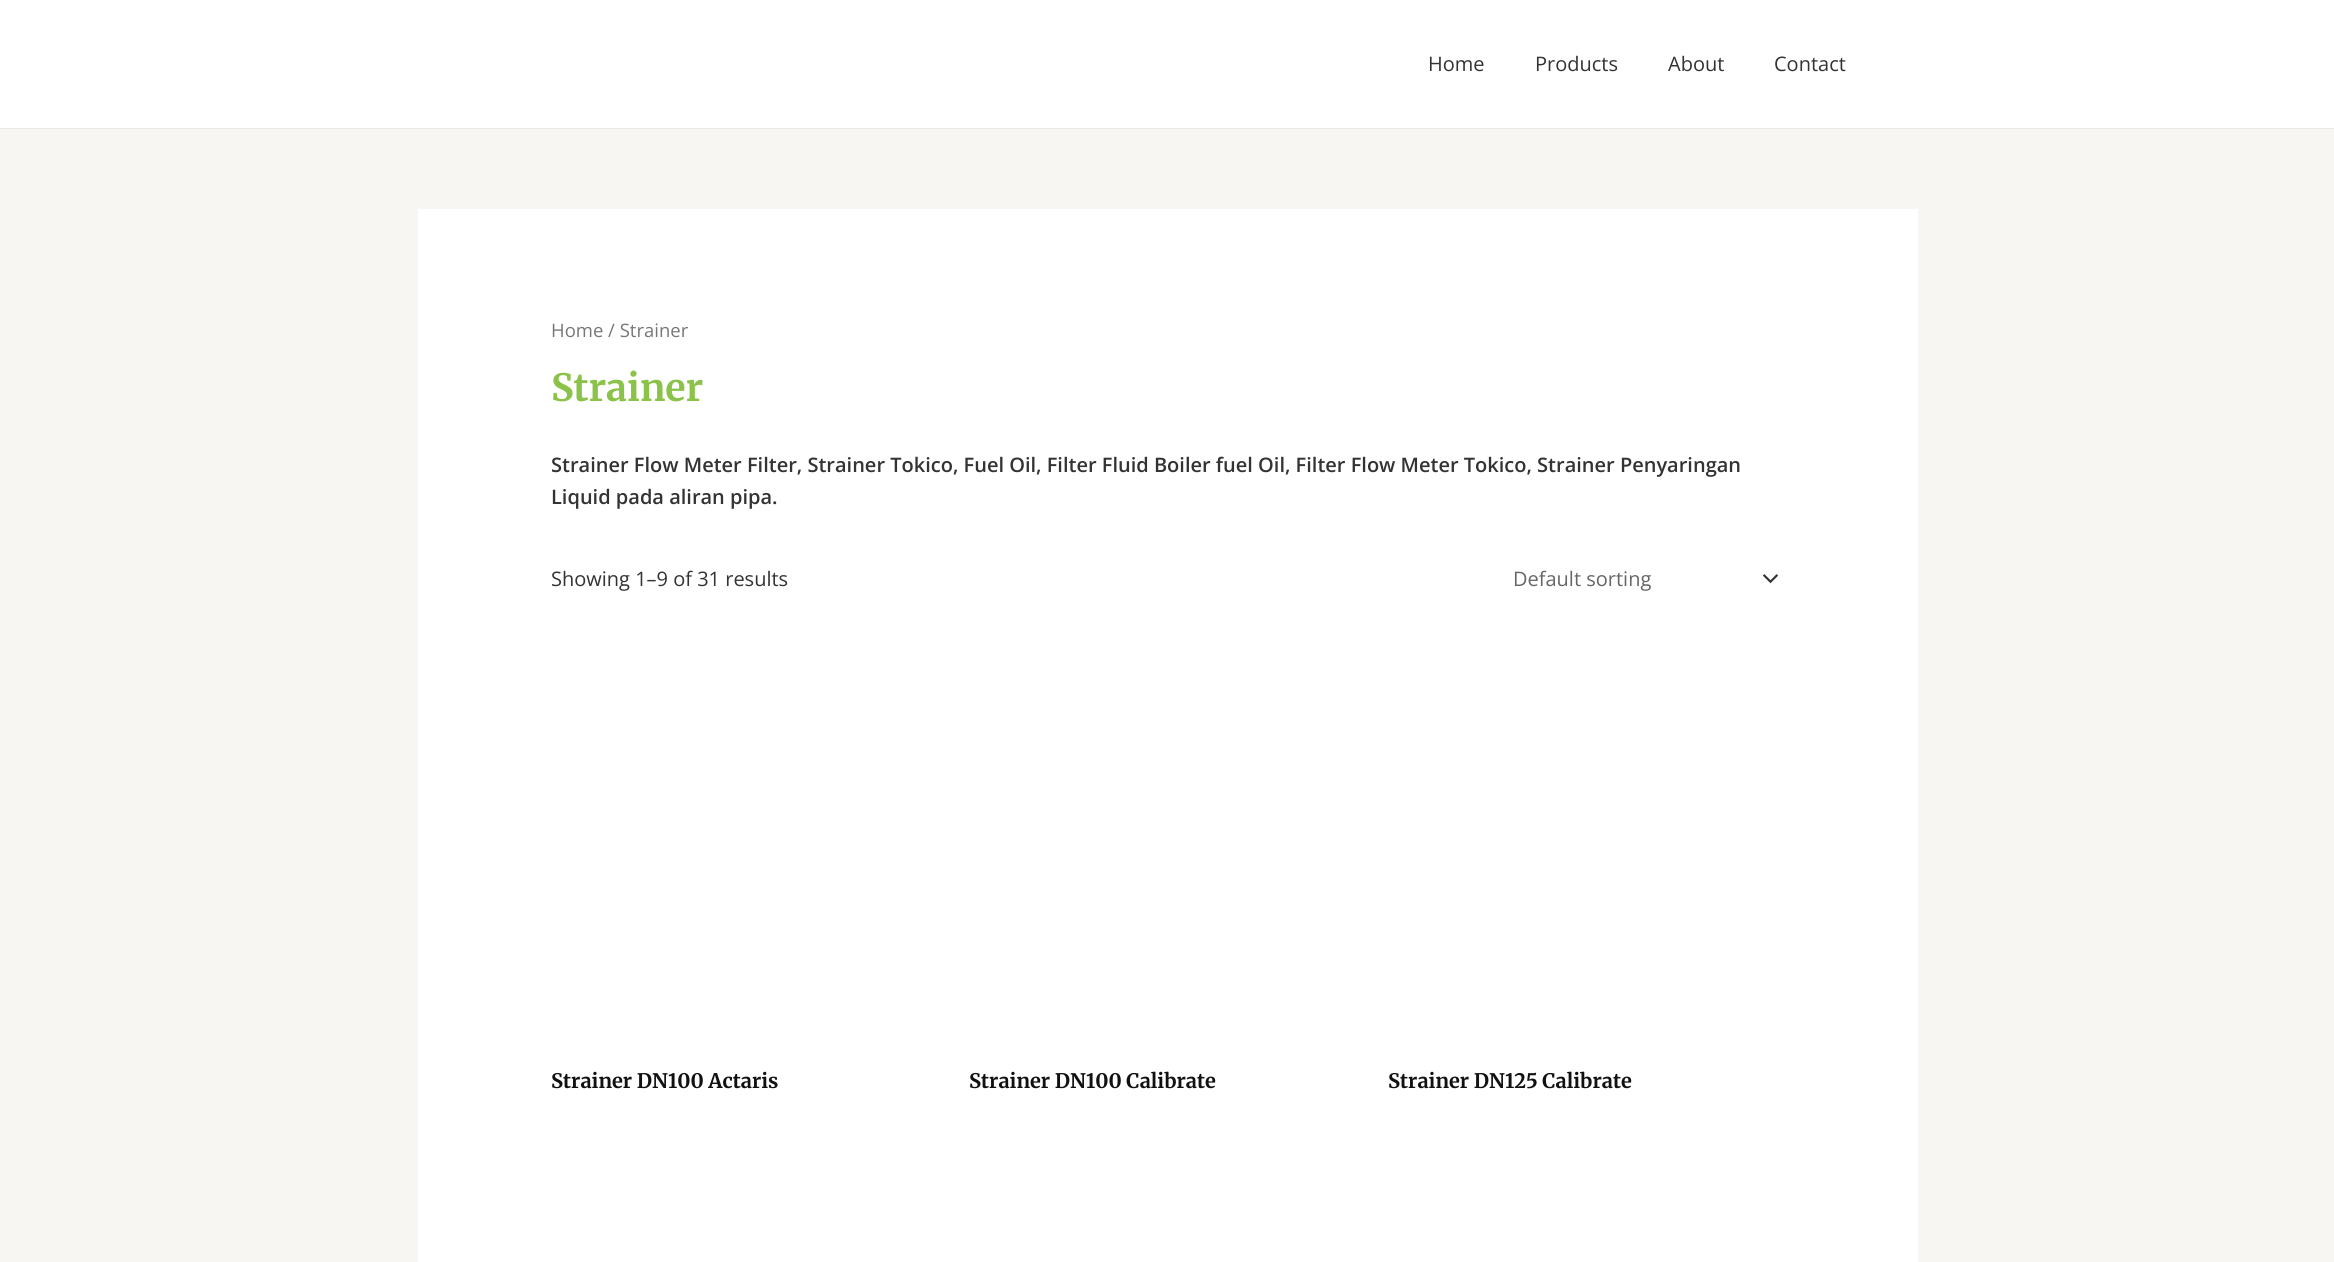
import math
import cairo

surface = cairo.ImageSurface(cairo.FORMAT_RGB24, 2334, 1262)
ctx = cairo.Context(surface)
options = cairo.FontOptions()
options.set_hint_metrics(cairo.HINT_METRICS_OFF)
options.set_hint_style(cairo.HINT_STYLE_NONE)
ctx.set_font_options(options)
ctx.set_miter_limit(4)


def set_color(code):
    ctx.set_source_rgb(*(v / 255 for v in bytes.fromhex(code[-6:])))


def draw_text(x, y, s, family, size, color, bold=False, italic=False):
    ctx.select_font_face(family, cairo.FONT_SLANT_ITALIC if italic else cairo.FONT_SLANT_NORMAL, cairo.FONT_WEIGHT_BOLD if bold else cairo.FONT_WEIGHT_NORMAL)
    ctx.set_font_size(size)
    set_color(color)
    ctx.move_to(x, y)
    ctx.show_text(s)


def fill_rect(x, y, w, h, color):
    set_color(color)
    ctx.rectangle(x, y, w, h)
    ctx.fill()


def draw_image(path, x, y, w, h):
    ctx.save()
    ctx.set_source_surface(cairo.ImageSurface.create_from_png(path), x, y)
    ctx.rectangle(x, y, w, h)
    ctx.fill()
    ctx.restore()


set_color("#f8f6f3")
ctx.paint()
fill_rect(0, 0, 2334, 128, "#ffffff")
fill_rect(0, 128, 2334, 1, "#eaeaea")
draw_text(1428, 71, "Home", "Open Sans", 20, "#333333")
draw_text(1535, 71, "Products", "Open Sans", 20, "#333333")
draw_text(1668, 71, "About", "Open Sans", 20, "#333333")
draw_text(1774, 71, "Contact", "Open Sans", 20, "#333333")
fill_rect(418, 209, 1500, 1053, "#ffffff")
draw_text(551, 337, "Home / Strainer", "Open Sans", 18.5, "#777777")
draw_text(551, 401, "Strainer", "Merriweather Light", 37.5, "#8bc34a")
draw_text(551, 472, "Strainer Flow Meter Filter, Strainer Tokico, Fuel Oil, Filter Fluid Boiler fuel Oil, Filter Flow Meter Tokico, Strainer Penyaringan", "Open Sans SemiBold", 20, "#333333")
draw_text(551, 504, "Liquid pada aliran pipa.", "Open Sans SemiBold", 20, "#333333")
draw_text(551, 586, "Showing 1–9 of 31 results", "Open Sans", 20, "#333333")
draw_image("assets/img1.png", 1763, 574, 16, 10)
draw_text(1513, 586, "Default sorting", "Open Sans", 20, "#666666")
draw_text(551, 1088, "Strainer DN100 Actaris", "Merriweather Light", 20, "#111111")
draw_text(969, 1088, "Strainer DN100 Calibrate", "Merriweather Light", 20, "#111111")
draw_text(1388, 1088, "Strainer DN125 Calibrate", "Merriweather Light", 20, "#111111")
surface.write_to_png("output.png")
